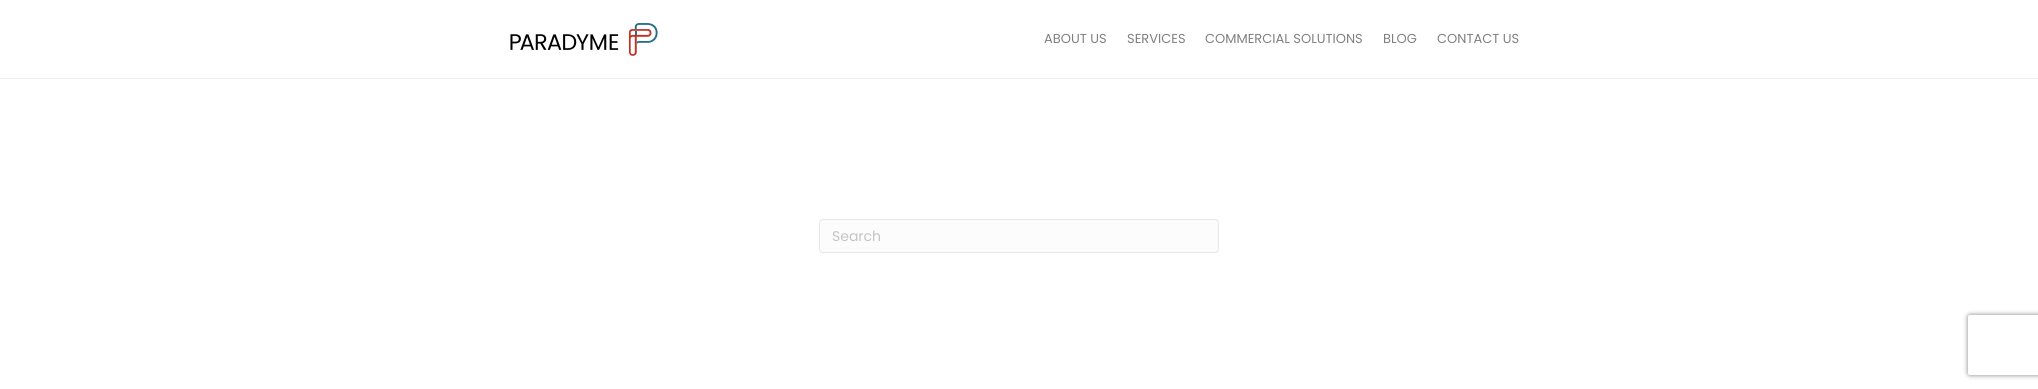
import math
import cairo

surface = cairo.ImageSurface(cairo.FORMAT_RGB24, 2038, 389)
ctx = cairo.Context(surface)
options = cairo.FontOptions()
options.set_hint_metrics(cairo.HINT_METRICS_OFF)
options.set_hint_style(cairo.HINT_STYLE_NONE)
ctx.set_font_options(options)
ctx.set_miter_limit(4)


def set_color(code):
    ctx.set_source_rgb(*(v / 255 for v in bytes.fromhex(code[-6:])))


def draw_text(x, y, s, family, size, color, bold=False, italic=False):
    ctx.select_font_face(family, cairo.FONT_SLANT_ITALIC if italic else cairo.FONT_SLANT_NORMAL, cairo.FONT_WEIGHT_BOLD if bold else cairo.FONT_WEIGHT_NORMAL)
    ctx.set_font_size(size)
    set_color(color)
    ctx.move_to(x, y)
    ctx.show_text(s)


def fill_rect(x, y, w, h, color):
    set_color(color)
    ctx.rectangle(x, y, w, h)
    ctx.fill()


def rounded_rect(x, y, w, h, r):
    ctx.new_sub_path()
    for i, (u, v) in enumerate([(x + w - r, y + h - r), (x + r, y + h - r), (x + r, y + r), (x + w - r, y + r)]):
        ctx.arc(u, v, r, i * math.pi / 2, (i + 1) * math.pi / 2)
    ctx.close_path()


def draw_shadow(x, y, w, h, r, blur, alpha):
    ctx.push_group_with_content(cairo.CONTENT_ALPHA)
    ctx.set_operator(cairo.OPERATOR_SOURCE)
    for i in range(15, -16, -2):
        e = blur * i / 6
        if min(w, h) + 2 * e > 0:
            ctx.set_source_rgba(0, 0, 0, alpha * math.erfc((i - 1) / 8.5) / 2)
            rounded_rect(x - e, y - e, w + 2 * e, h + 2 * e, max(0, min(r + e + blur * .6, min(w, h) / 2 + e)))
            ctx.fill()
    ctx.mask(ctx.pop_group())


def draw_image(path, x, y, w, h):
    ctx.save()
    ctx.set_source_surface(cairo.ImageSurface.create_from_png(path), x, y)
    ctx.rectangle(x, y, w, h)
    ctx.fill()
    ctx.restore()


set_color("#ffffff")
ctx.paint()
fill_rect(0, 78, 2038, 1, "#eeeeee")
draw_image("assets/img1.png", 510, 23, 148, 33)
draw_text(1044, 43, "ABOUT US", "Poppins", 13, "#808080")
draw_text(1127, 43, "SERVICES", "Poppins", 13, "#808080")
draw_text(1205, 43, "COMMERCIAL SOLUTIONS", "Poppins", 13, "#808080")
draw_text(1383, 43, "BLOG", "Poppins", 13, "#808080")
draw_text(1437, 43, "CONTACT US", "Poppins", 13, "#808080")
set_color("#fcfcfc")
rounded_rect(819.5, 219.5, 399, 33, 3.5)
ctx.fill_preserve()
set_color("#e6e6e6")
ctx.set_line_width(1)
ctx.stroke()
draw_text(832, 241, "Search", "Poppins", 14, "#c4c4c4")
ctx.save()
ctx.set_fill_rule(cairo.FILL_RULE_EVEN_ODD)
ctx.new_path()
ctx.move_to(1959, 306)
ctx.line_to(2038, 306)
ctx.line_to(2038, 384)
ctx.line_to(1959, 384)
ctx.close_path()
ctx.move_to(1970, 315)
ctx.line_to(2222, 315)
ctx.curve_to(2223, 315, 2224, 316, 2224, 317)
ctx.line_to(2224, 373)
ctx.curve_to(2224, 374, 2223, 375, 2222, 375)
ctx.line_to(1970, 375)
ctx.curve_to(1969, 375, 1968, 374, 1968, 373)
ctx.line_to(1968, 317)
ctx.curve_to(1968, 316, 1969, 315, 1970, 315)
ctx.close_path()
ctx.clip()
set_color("#808080")
draw_shadow(1968, 315, 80, 60, 2, 2.5, 1)
ctx.restore()
surface.write_to_png("output.png")
